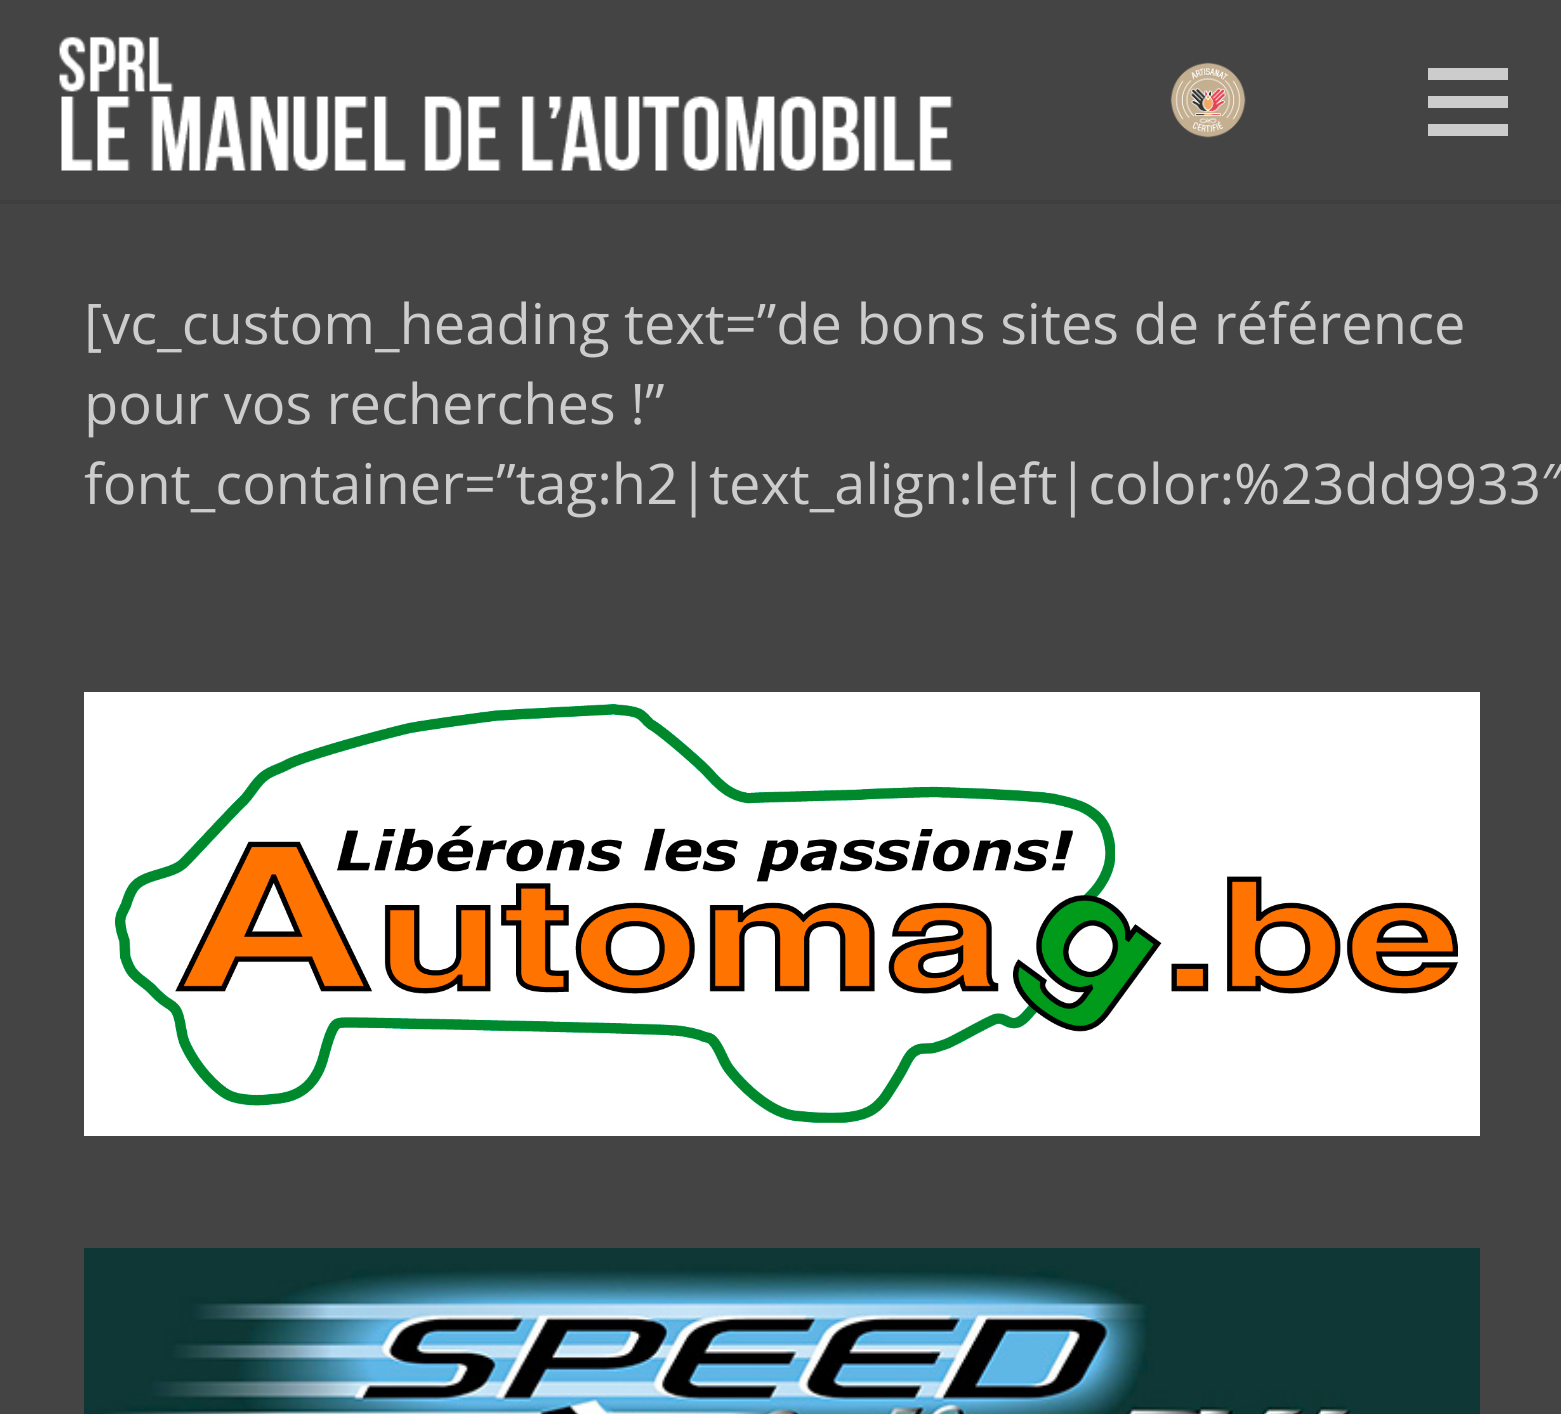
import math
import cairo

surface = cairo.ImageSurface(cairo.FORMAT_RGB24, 1561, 1414)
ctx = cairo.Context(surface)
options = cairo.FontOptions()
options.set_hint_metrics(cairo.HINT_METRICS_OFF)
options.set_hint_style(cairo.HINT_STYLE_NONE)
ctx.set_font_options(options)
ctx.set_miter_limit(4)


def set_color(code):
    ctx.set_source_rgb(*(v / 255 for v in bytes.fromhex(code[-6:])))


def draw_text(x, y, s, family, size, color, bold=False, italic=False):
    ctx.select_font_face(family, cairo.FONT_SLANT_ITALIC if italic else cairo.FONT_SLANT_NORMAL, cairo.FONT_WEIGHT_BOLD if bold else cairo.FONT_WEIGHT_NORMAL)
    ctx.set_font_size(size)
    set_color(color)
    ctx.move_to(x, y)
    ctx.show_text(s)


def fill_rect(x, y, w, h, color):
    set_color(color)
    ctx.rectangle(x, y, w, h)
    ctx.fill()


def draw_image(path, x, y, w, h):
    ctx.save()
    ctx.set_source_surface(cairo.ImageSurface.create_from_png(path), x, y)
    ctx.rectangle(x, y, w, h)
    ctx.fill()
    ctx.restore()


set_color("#444444")
ctx.paint()
fill_rect(0, 200, 1561, 4, "#3f3f3f")
draw_image("assets/img1.png", 59, 36, 894, 135)
draw_image("assets/img2.png", 1170, 62, 76, 76)
fill_rect(1428, 96, 80, 12, "#cccccc")
fill_rect(1428, 68, 80, 12, "#cccccc")
fill_rect(1428, 124, 80, 12, "#cccccc")
draw_text(84, 344, "[vc_custom_heading text=”de bons sites de référence", "Open Sans", 56, "#cccccc")
draw_text(84, 424, "pour vos recherches !”", "Open Sans", 56, "#cccccc")
draw_text(84, 504, "font_container=”tag:h2|text_align:left|color:%23dd9933″", "Open Sans", 56, "#cccccc")
draw_image("assets/img3.png", 84, 692, 1396, 444)
draw_image("assets/img4.png", 84, 1248, 1396, 166)
surface.write_to_png("output.png")
